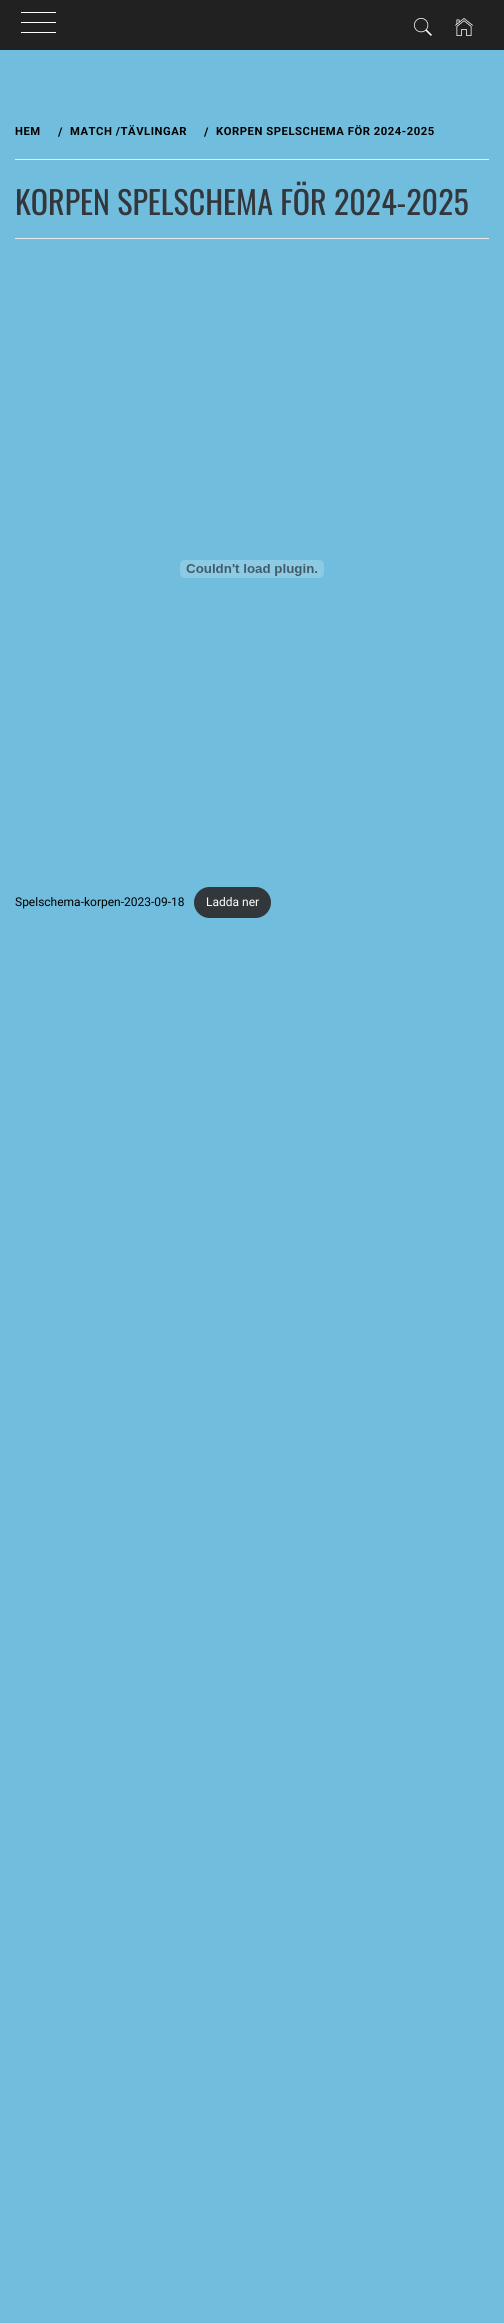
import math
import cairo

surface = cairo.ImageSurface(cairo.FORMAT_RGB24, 504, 2323)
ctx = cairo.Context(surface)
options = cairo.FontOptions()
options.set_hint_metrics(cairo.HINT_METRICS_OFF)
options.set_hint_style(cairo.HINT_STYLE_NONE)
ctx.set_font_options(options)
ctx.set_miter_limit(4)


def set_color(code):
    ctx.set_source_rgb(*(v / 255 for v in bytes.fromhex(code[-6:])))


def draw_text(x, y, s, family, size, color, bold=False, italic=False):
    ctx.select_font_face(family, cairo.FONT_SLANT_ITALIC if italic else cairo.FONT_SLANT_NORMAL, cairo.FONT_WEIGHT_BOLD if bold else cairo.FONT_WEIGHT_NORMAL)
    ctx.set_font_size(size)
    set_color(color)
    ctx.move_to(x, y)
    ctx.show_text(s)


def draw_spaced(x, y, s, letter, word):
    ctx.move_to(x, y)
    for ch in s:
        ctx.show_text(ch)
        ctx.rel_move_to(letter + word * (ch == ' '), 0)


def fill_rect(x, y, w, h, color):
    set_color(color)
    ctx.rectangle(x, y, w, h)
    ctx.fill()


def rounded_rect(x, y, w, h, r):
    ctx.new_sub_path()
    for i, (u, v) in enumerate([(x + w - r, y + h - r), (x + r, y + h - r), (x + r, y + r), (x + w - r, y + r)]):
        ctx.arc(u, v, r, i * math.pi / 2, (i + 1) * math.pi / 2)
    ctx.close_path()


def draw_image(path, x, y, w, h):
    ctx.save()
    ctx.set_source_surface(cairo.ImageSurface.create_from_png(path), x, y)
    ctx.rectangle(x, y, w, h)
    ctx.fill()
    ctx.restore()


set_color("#71bddd")
ctx.paint()
fill_rect(0, 0, 504, 50, "#212121")
fill_rect(21, 12, 35, 1, "#ffffff")
fill_rect(21, 22, 35, 1, "#ffffff")
fill_rect(21, 32, 35, 1, "#ffffff")
draw_image("assets/img1.png", 414, 18, 18, 18)
draw_image("assets/img2.png", 455, 18, 18, 18)
fill_rect(15, 238, 474, 1, "#eaeaea")
fill_rect(15, 159, 474, 1, "#eaeaea")
ctx.select_font_face("Roboto", cairo.FONT_SLANT_NORMAL, cairo.FONT_WEIGHT_BOLD)
ctx.set_font_size(11.25)
set_color("#000000")
draw_spaced(15, 135, "HEM", 0.55, 0)
ctx.set_font_size(12)
draw_spaced(58, 136, "/", 0.55, 0)
ctx.set_font_size(11.25)
draw_spaced(70, 135, "MATCH /TÄVLINGAR", 0.55, 0)
ctx.set_font_size(12)
draw_spaced(204, 136, "/", 0.55, 0)
ctx.set_font_size(11.25)
draw_spaced(216, 135, "KORPEN SPELSCHEMA FÖR 2024-2025", 0.55, 0)
draw_text(15, 215, "KORPEN SPELSCHEMA FÖR 2024-2025", "Oswald", 32, "#33363b")
draw_image("assets/img3.png", 180, 560, 144, 18)
draw_text(15, 906, "Spelschema-korpen-2023-09-18", "Roboto", 12, "#000000")
set_color("#32373c")
rounded_rect(194, 887, 77, 31, 15.5)
ctx.fill()
draw_text(206, 906, "Ladda ner", "Roboto", 12, "#ffffff")
surface.write_to_png("output.png")
